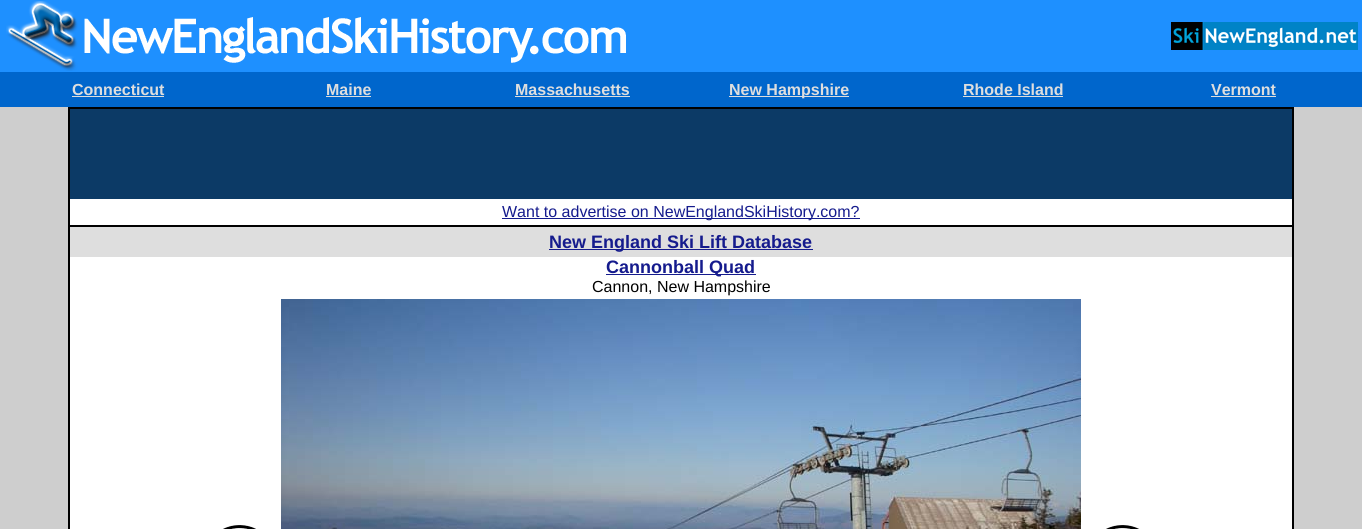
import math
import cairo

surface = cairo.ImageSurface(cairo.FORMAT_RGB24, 1362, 529)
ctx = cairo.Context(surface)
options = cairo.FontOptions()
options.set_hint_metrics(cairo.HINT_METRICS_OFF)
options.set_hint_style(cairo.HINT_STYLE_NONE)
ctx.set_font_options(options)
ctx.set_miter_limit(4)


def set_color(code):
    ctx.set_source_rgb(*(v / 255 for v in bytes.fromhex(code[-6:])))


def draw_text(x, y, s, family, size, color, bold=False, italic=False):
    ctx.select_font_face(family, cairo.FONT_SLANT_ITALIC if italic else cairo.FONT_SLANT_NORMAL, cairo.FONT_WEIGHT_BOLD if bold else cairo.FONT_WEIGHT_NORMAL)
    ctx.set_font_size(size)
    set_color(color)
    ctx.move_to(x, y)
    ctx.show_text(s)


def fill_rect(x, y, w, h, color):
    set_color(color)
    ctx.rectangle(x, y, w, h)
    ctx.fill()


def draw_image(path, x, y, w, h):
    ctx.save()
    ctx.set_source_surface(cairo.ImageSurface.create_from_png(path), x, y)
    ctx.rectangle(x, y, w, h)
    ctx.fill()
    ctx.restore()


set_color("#cecece")
ctx.paint()
fill_rect(0, 0, 1362, 72, "#1e90ff")
draw_image("assets/img1.png", 6, 1, 620, 70)
draw_image("assets/img2.png", 1171, 22, 187, 28)
fill_rect(0, 72, 1362, 35, "#0066cc")
draw_text(72, 95, "Connecticut", "Liberation Sans", 16, "#dedede", bold=True)
fill_rect(72, 96, 92, 1, "#dedede")
draw_text(326, 95, "Maine", "Liberation Sans", 16, "#dedede", bold=True)
fill_rect(326, 96, 45, 1, "#dedede")
draw_text(515, 95, "Massachusetts", "Liberation Sans", 16, "#dedede", bold=True)
fill_rect(515, 96, 115, 1, "#dedede")
fill_rect(729, 96, 120, 1, "#dedede")
draw_text(729, 95, "New Hampshire", "Liberation Sans", 16, "#dedede", bold=True)
draw_text(963, 95, "Rhode Island", "Liberation Sans", 16, "#dedede", bold=True)
fill_rect(963, 96, 100, 1, "#dedede")
draw_text(1211, 95, "Vermont", "Liberation Sans", 16, "#dedede", bold=True)
fill_rect(1211, 96, 65, 1, "#dedede")
ctx.rectangle(68.5, 107.5, 1225, 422)
set_color("#000000")
ctx.set_line_width(1)
ctx.stroke()
fill_rect(70, 109, 1222, 90, "#0c3a66")
ctx.rectangle(69.5, 108.5, 1223, 117)
set_color("#000000")
ctx.stroke()
fill_rect(70, 199, 1222, 26, "#ffffff")
fill_rect(502, 218, 358, 1, "#151b8d")
draw_text(502, 217, "Want to advertise on NewEnglandSkiHistory.com?", "Liberation Sans", 16, "#151b8d")
fill_rect(70, 257, 1222, 272, "#ffffff")
ctx.rectangle(69.5, 226.5, 1223, 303)
set_color("#000000")
ctx.stroke()
fill_rect(70, 227, 1222, 30, "#dedede")
fill_rect(549, 249, 264, 1, "#151b8d")
draw_text(549, 248, "New England Ski Lift Database", "Liberation Sans", 18, "#151b8d", bold=True)
fill_rect(606, 274, 150, 1, "#151b8d")
draw_text(606, 273, "Cannonball Quad", "Liberation Sans", 18, "#151b8d", bold=True)
draw_text(592, 292, "Cannon, New Hampshire", "Liberation Sans", 16, "#000000")
draw_image("assets/img3.png", 223, 525, 33, 4)
draw_image("assets/img4.png", 281, 299, 800, 230)
draw_image("assets/img5.png", 1106, 525, 34, 4)
surface.write_to_png("output.png")
